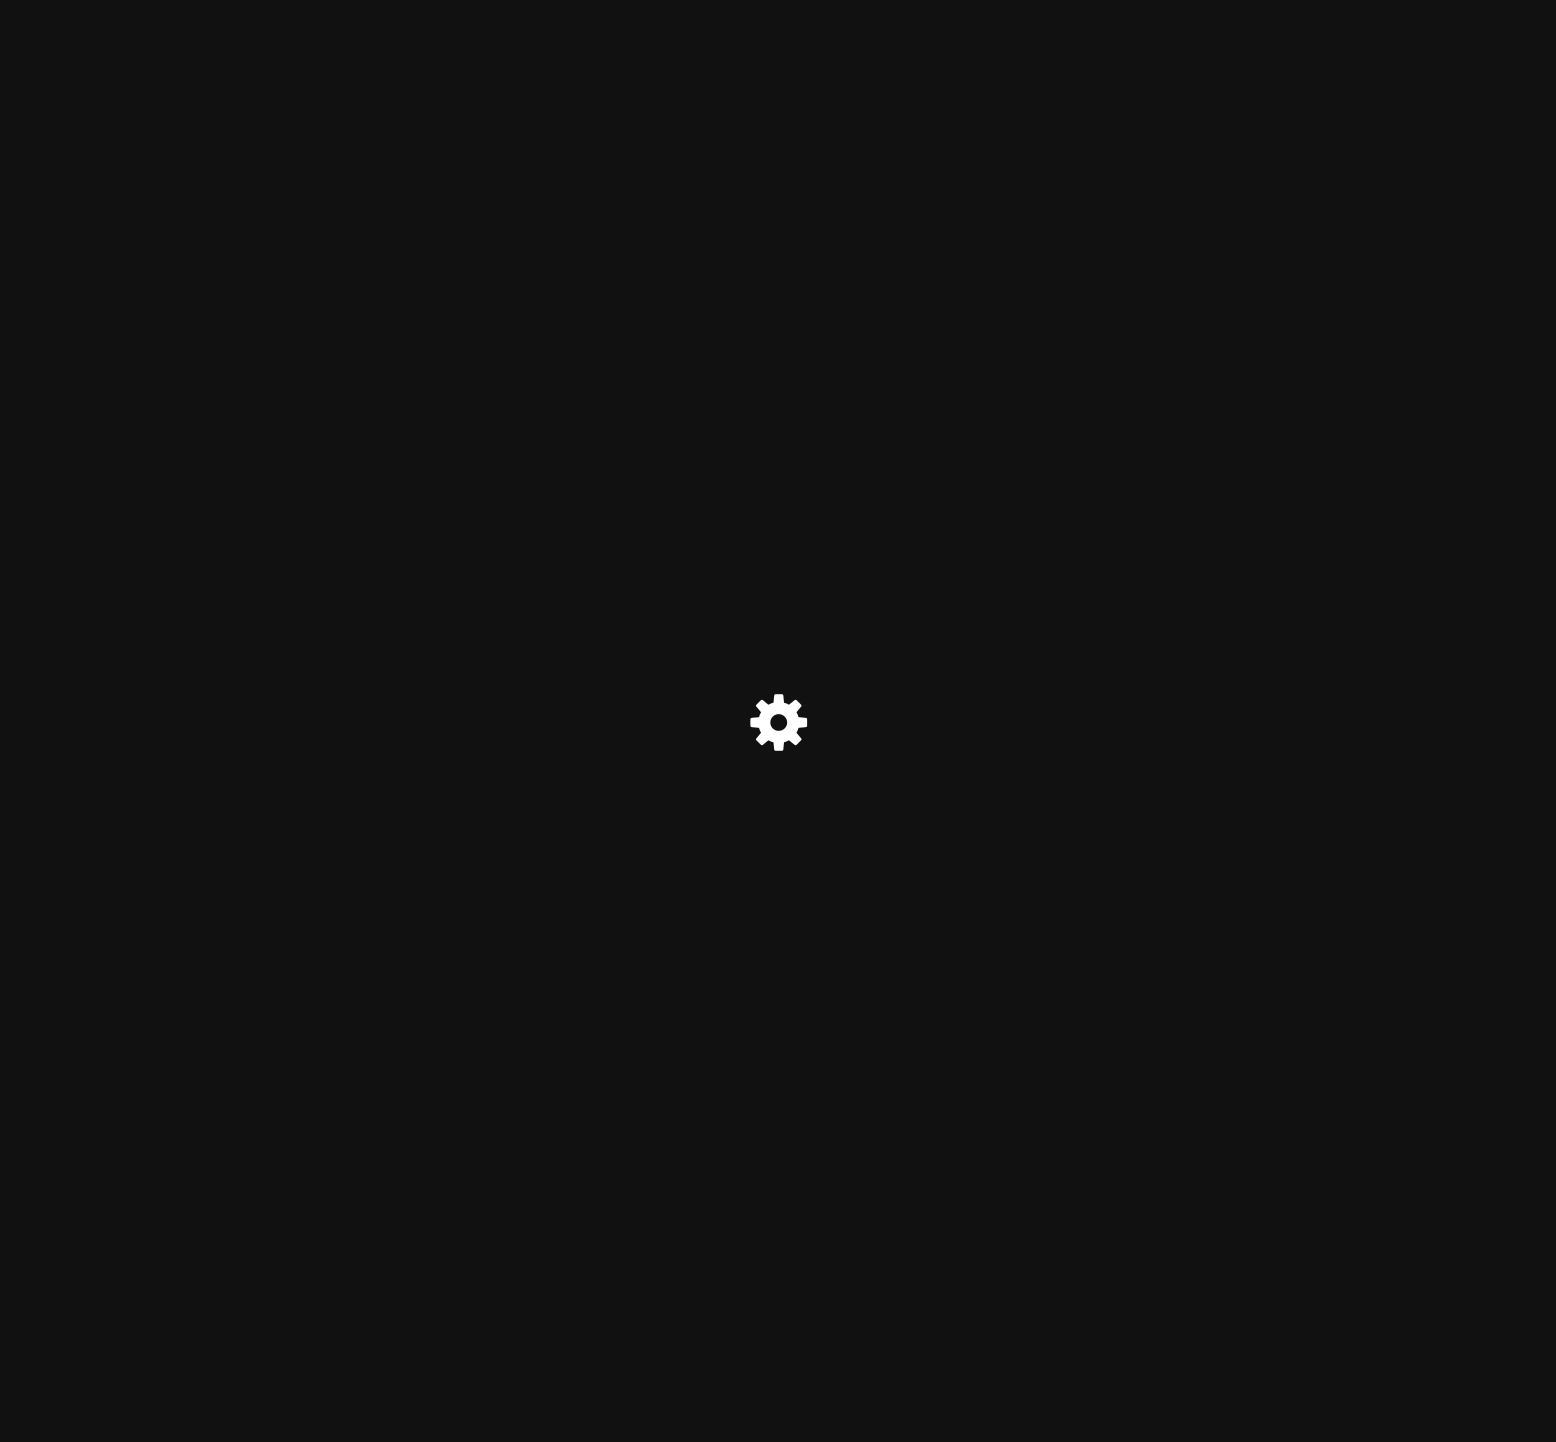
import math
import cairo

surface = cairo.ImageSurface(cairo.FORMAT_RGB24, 1556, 1442)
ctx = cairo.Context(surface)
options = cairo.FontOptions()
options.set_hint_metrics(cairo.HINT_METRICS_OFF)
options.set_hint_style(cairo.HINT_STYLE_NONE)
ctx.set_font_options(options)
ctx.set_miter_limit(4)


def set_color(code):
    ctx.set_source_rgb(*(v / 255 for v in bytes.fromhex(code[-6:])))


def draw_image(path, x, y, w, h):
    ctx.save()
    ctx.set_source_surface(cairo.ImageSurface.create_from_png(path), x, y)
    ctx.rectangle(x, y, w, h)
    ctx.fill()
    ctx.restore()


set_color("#111111")
ctx.paint()
draw_image("assets/img1.png", 750, 694, 58, 57)
surface.write_to_png("output.png")
